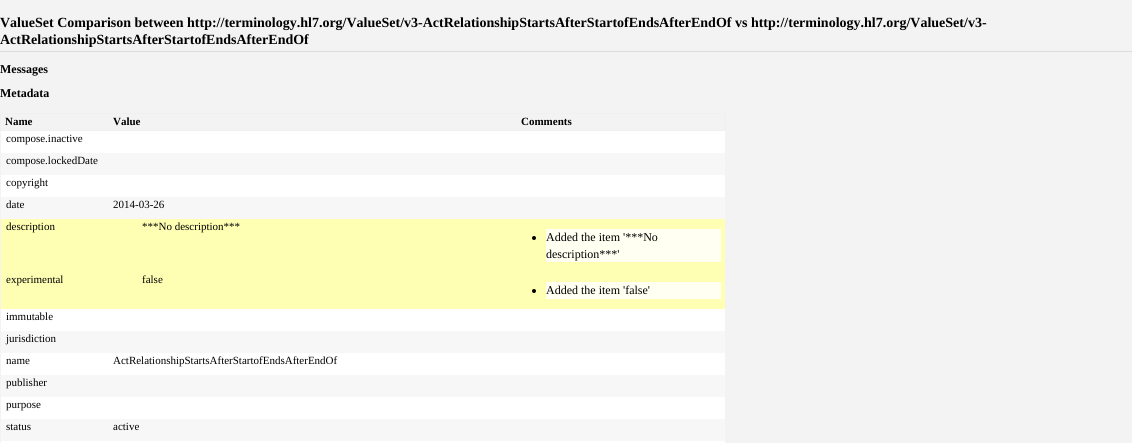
import math
import cairo

surface = cairo.ImageSurface(cairo.FORMAT_RGB24, 1132, 443)
ctx = cairo.Context(surface)
options = cairo.FontOptions()
options.set_hint_metrics(cairo.HINT_METRICS_OFF)
options.set_hint_style(cairo.HINT_STYLE_NONE)
ctx.set_font_options(options)
ctx.set_miter_limit(4)


def set_color(code):
    ctx.set_source_rgb(*(v / 255 for v in bytes.fromhex(code[-6:])))


def draw_text(x, y, s, family, size, color, bold=False, italic=False):
    ctx.select_font_face(family, cairo.FONT_SLANT_ITALIC if italic else cairo.FONT_SLANT_NORMAL, cairo.FONT_WEIGHT_BOLD if bold else cairo.FONT_WEIGHT_NORMAL)
    ctx.set_font_size(size)
    set_color(color)
    ctx.move_to(x, y)
    ctx.show_text(s)


def fill_rect(x, y, w, h, color):
    set_color(color)
    ctx.rectangle(x, y, w, h)
    ctx.fill()


set_color("#f3f3f3")
ctx.paint()
fill_rect(0, 51, 1132, 1, "#dcdcdc")
draw_text(0, 27, "ValueSet Comparison between http://terminology.hl7.org/ValueSet/v3-ActRelationshipStartsAfterStartofEndsAfterEndOf vs http://terminology.hl7.org/ValueSet/v3-", "Liberation Serif", 14, "#000000", bold=True)
draw_text(0, 44, "ActRelationshipStartsAfterStartofEndsAfterEndOf", "Liberation Serif", 14, "#000000", bold=True)
draw_text(0, 73, "Messages", "Liberation Serif", 12, "#000000", bold=True)
draw_text(0, 97, "Metadata", "Liberation Serif", 12, "#000000", bold=True)
fill_rect(0, 113, 726, 1, "#f0f0f0")
fill_rect(725, 113, 1, 18, "#f0f0f0")
fill_rect(0, 130, 726, 1, "#f0f0f0")
fill_rect(0, 113, 1, 18, "#f0f0f0")
draw_text(5, 125, "Name", "Liberation Serif", 11, "#000000", bold=True)
draw_text(113, 125, "Value", "Liberation Serif", 11, "#000000", bold=True)
draw_text(521, 125, "Comments", "Liberation Serif", 11, "#000000", bold=True)
fill_rect(1, 131, 724, 22, "#ffffff")
draw_text(6, 142, "compose.inactive", "Liberation Serif", 11, "#000000")
fill_rect(1, 153, 724, 22, "#f7f7f7")
draw_text(6, 164, "compose.lockedDate", "Liberation Serif", 11, "#000000")
fill_rect(1, 175, 724, 22, "#ffffff")
draw_text(6, 186, "copyright", "Liberation Serif", 11, "#000000")
fill_rect(1, 197, 724, 22, "#f7f7f7")
draw_text(6, 208, "date", "Liberation Serif", 11, "#000000")
draw_text(113, 208, "2014-03-26", "Liberation Serif", 11, "#000000")
fill_rect(1, 219, 724, 90, "#ffffb3")
draw_text(6, 230, "description", "Liberation Serif", 11, "#000000")
draw_text(142, 230, "***No description***", "Liberation Serif", 11, "#000000")
fill_rect(546, 229, 175, 33, "#fffff2")
set_color("#000000")
ctx.new_path()
ctx.arc(534, 238, 2, 0, 2 * math.pi)
ctx.fill()
draw_text(546, 241, "Added the item '***No", "Liberation Serif", 12, "#000000")
draw_text(546, 258, "description***'", "Liberation Serif", 12, "#000000")
draw_text(6, 283, "experimental", "Liberation Serif", 11, "#000000")
draw_text(142, 283, "false", "Liberation Serif", 11, "#000000")
fill_rect(546, 282, 175, 17, "#fffff2")
set_color("#000000")
ctx.new_path()
ctx.arc(534, 291, 2, 0, 2 * math.pi)
ctx.fill()
draw_text(546, 294, "Added the item 'false'", "Liberation Serif", 12, "#000000")
fill_rect(1, 309, 724, 22, "#ffffff")
draw_text(6, 320, "immutable", "Liberation Serif", 11, "#000000")
fill_rect(1, 331, 724, 22, "#f7f7f7")
draw_text(6, 342, "jurisdiction", "Liberation Serif", 11, "#000000")
fill_rect(1, 353, 724, 22, "#ffffff")
draw_text(6, 364, "name", "Liberation Serif", 11, "#000000")
draw_text(113, 364, "ActRelationshipStartsAfterStartofEndsAfterEndOf", "Liberation Serif", 11, "#000000")
fill_rect(1, 375, 724, 22, "#f7f7f7")
draw_text(6, 386, "publisher", "Liberation Serif", 11, "#000000")
fill_rect(1, 397, 724, 22, "#ffffff")
draw_text(6, 408, "purpose", "Liberation Serif", 11, "#000000")
fill_rect(1, 419, 724, 22, "#f7f7f7")
draw_text(6, 430, "status", "Liberation Serif", 11, "#000000")
draw_text(113, 430, "active", "Liberation Serif", 11, "#000000")
fill_rect(1, 441, 724, 2, "#ffffff")
surface.write_to_png("output.png")
